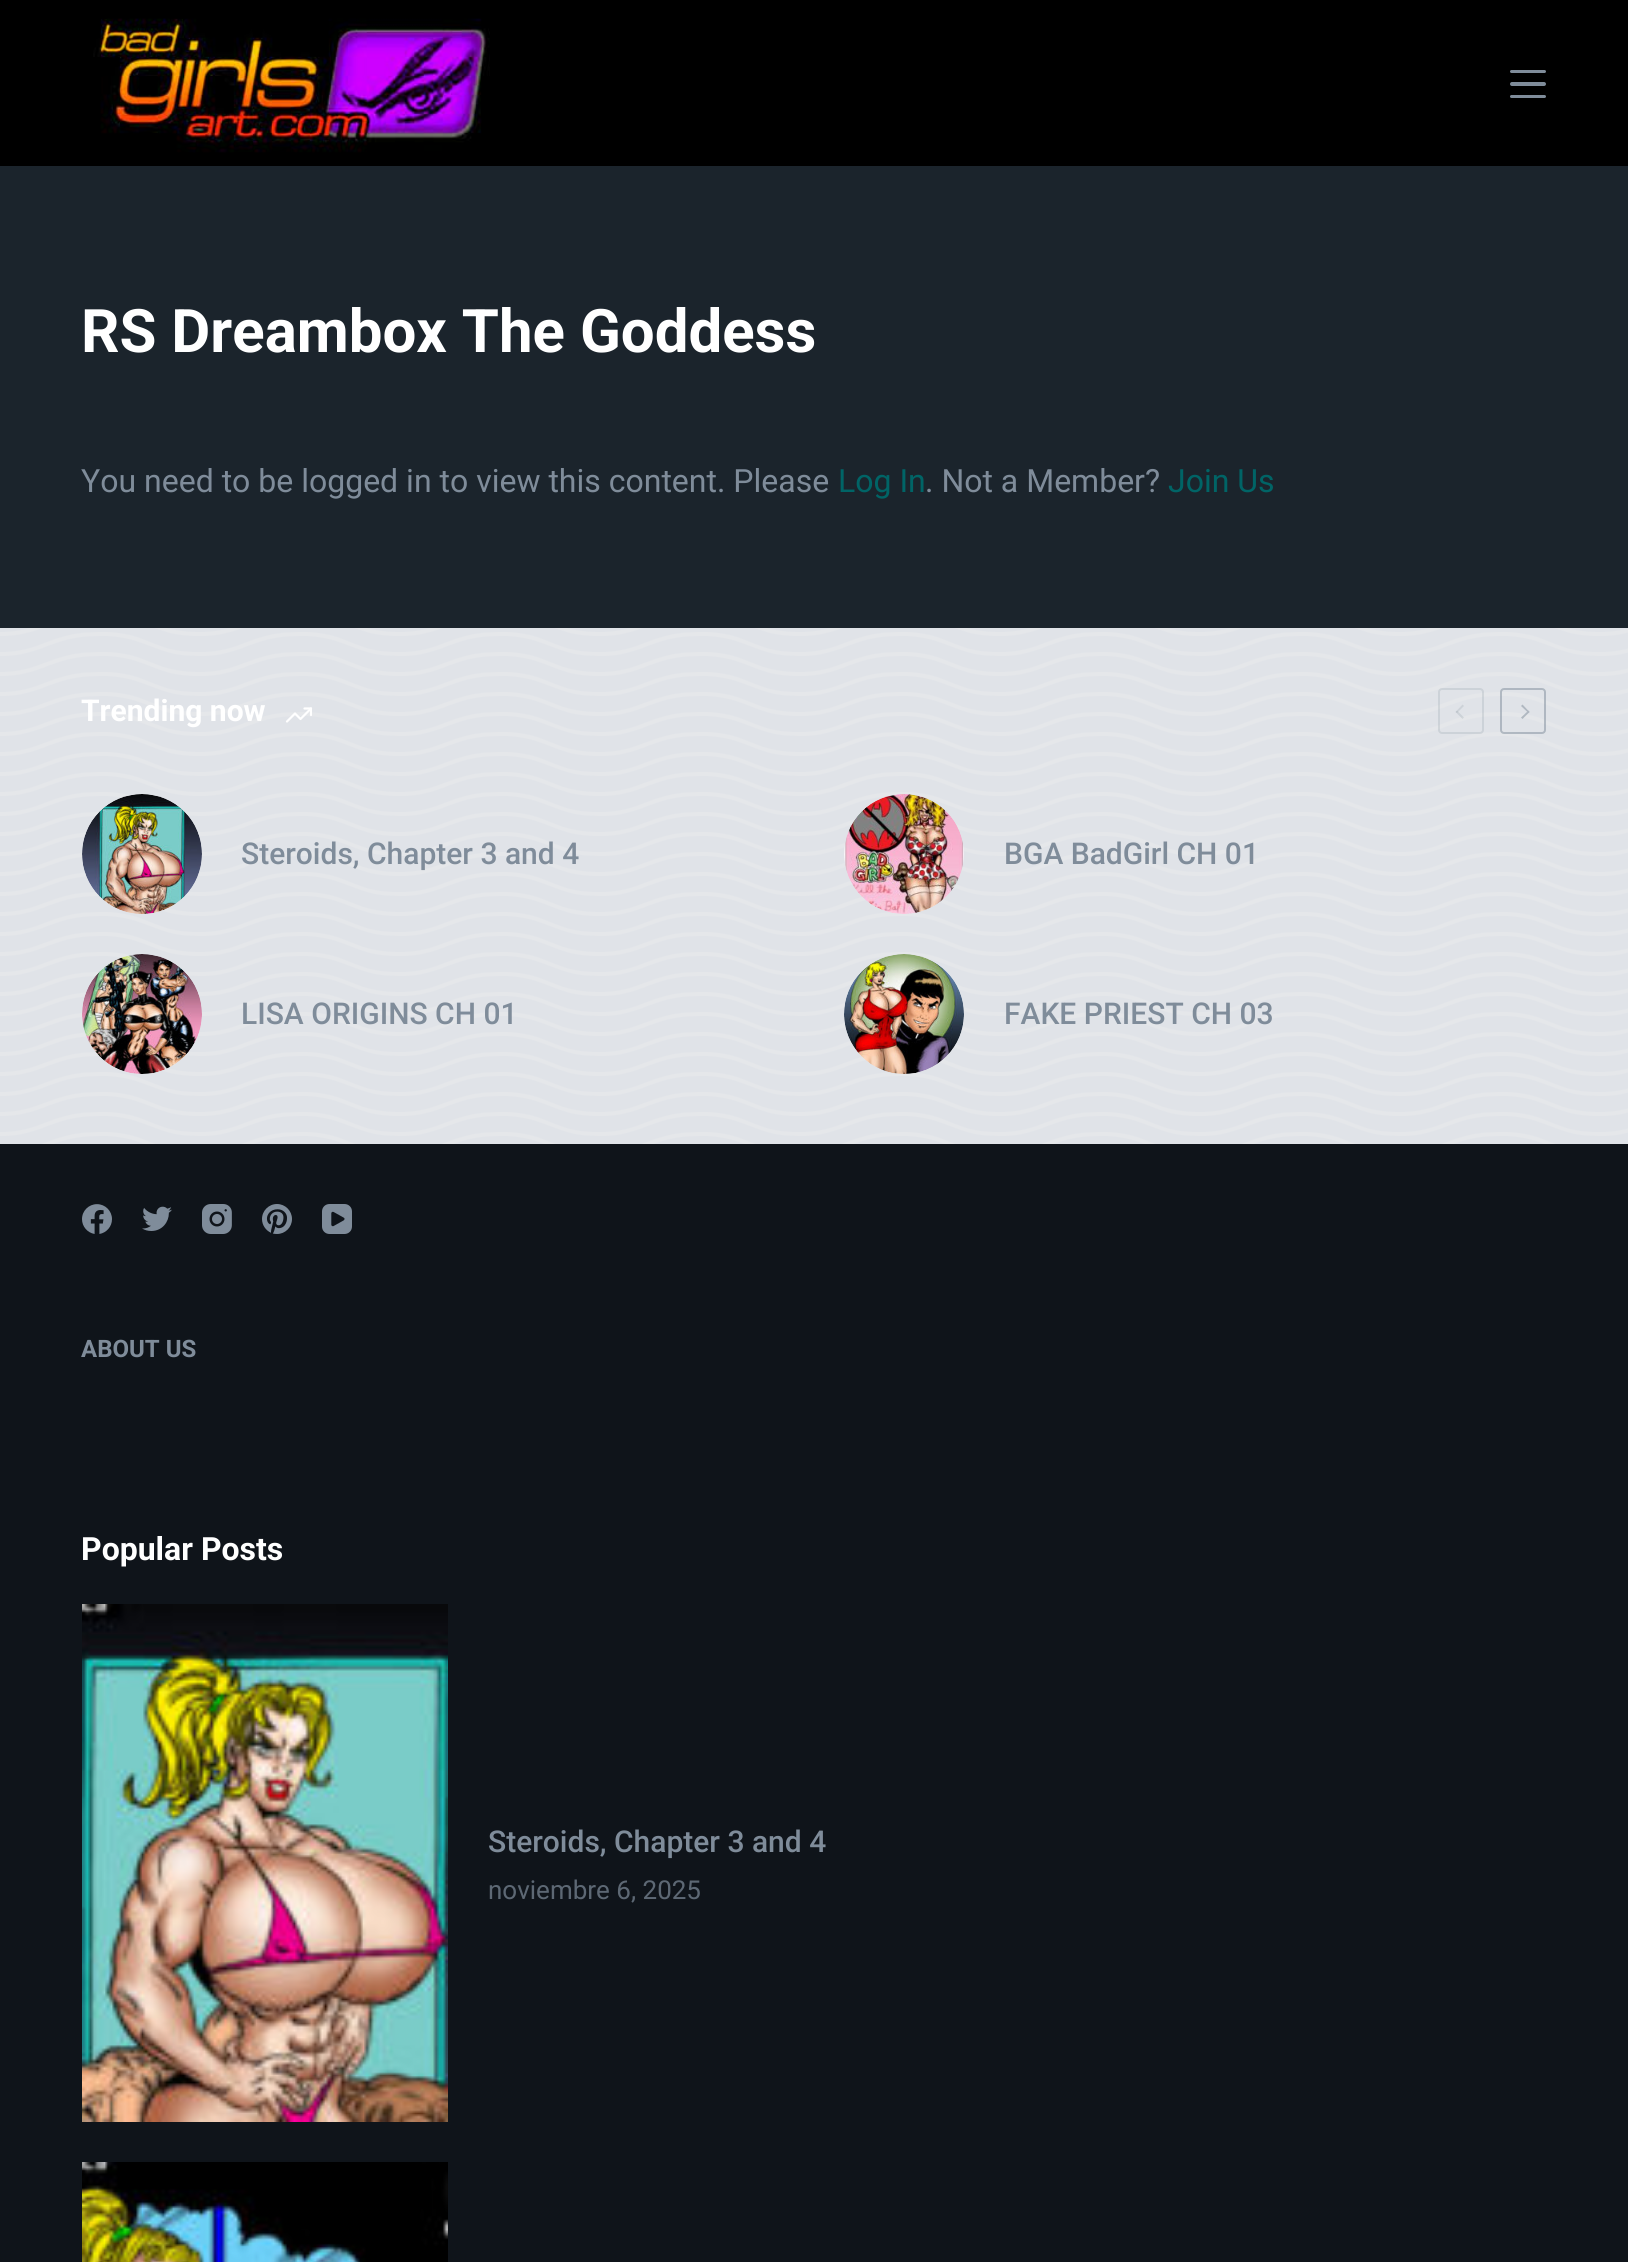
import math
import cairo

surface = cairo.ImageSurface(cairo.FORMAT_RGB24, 1628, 2262)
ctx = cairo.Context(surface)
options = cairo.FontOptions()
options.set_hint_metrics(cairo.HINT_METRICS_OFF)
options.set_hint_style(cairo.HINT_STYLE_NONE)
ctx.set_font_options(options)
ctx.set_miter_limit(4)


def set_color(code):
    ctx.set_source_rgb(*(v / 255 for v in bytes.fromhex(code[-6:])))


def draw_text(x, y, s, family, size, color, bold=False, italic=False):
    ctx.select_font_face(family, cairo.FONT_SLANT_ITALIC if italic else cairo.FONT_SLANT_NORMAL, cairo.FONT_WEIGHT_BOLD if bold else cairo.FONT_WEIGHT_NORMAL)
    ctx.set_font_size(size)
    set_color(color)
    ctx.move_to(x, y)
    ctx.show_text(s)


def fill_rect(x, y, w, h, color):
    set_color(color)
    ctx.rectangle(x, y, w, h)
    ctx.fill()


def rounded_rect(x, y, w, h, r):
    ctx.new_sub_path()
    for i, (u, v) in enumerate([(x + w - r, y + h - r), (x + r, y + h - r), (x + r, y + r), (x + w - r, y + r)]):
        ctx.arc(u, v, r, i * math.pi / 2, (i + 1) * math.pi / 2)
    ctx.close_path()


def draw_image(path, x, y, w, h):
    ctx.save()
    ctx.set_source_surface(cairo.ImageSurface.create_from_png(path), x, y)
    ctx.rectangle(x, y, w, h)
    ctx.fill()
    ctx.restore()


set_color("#1b242c")
ctx.paint()
fill_rect(0, 0, 1628, 166, "#000000")
draw_image("assets/img1.png", 93, 18, 397, 135)
set_color("#7f8c9a")
rounded_rect(1510, 70, 36, 3, 1.5)
ctx.fill()
rounded_rect(1510, 82, 36, 4, 2)
ctx.fill()
rounded_rect(1510, 95, 36, 3, 1.5)
ctx.fill()
draw_text(81, 352, "RS Dreambox The Goddess", "Roboto", 60, "#ffffff", bold=True)
draw_text(81, 492, "You need to be logged in to view this content. Please", "Roboto", 32, "#7f8c9a")
draw_text(838, 492, "Log In", "Roboto", 32, "#006466")
draw_text(925, 492, ". Not a Member?", "Roboto", 32, "#7f8c9a")
draw_text(1168, 492, "Join Us", "Roboto", 32, "#006466")
fill_rect(0, 628, 1628, 516, "#e0e3e8")
draw_image("assets/img2.png", 0, 628, 1628, 516)
draw_text(81, 721, "Trending now", "Roboto", 30, "#ffffff", bold=True)
ctx.new_path()
ctx.move_to(311, 708.5)
ctx.line_to(300.5, 719)
ctx.line_to(295, 713.5)
ctx.line_to(287, 721.5)
ctx.set_line_width(2.2)
ctx.set_line_cap(cairo.LINE_CAP_ROUND)
ctx.set_line_join(cairo.LINE_JOIN_ROUND)
ctx.stroke()
ctx.save()
ctx.rectangle(286, 702, 26, 26)
ctx.clip()
ctx.new_path()
ctx.move_to(304.5, 708.5)
ctx.line_to(311, 708.5)
ctx.line_to(311, 715)
ctx.stroke()
ctx.restore()
rounded_rect(1439, 689, 44, 44, 3)
ctx.set_source_rgba(0.498, 0.549, 0.604, 0.2)
ctx.set_line_width(2)
ctx.set_line_cap(cairo.LINE_CAP_BUTT)
ctx.set_line_join(cairo.LINE_JOIN_MITER)
ctx.stroke()
set_color("#cdd2d8")
ctx.new_path()
ctx.move_to(1455.5, 712)
ctx.line_to(1462.5, 704.5)
ctx.line_to(1464, 706)
ctx.line_to(1457, 713)
ctx.close_path()
ctx.fill()
ctx.set_source_rgba(0.498, 0.549, 0.604, 0.2)
ctx.new_path()
ctx.move_to(1455.5, 712)
ctx.line_to(1457, 710.5)
ctx.line_to(1464, 717.5)
ctx.line_to(1462.5, 719)
ctx.close_path()
ctx.fill()
rounded_rect(1501, 689, 44, 44, 3)
ctx.set_source_rgba(0.498, 0.549, 0.604, 0.5)
ctx.stroke()
ctx.new_path()
ctx.move_to(1529.5, 712)
ctx.line_to(1522.5, 719)
ctx.line_to(1521, 717.5)
ctx.line_to(1528.5, 710.5)
ctx.close_path()
ctx.fill()
set_color("#b0b8c1")
ctx.new_path()
ctx.move_to(1529.5, 712)
ctx.line_to(1528.5, 713)
ctx.line_to(1521, 706)
ctx.line_to(1522.5, 704.5)
ctx.close_path()
ctx.fill()
draw_image("assets/img3.png", 82, 794, 120, 120)
draw_text(241, 864, "Steroids, Chapter 3 and 4", "Roboto Medium", 30, "#7f8c9a")
draw_image("assets/img4.png", 844, 794, 120, 120)
draw_text(1004, 864, "BGA BadGirl CH 01", "Roboto Medium", 30, "#7f8c9a")
draw_image("assets/img5.png", 82, 954, 120, 120)
draw_text(241, 1024, "LISA ORIGINS CH 01", "Roboto Medium", 30, "#7f8c9a")
draw_image("assets/img6.png", 844, 954, 120, 120)
draw_text(1004, 1024, "FAKE PRIEST CH 03", "Roboto Medium", 30, "#7f8c9a")
fill_rect(0, 1144, 1628, 1118, "#0f141a")
draw_image("assets/img7.png", 82, 1204, 30, 30)
draw_image("assets/img8.png", 142, 1206, 30, 25)
draw_image("assets/img9.png", 202, 1204, 30, 30)
draw_image("assets/img10.png", 262, 1204, 30, 30)
draw_image("assets/img11.png", 322, 1204, 30, 30)
draw_text(81, 1357, "ABOUT US", "Roboto", 24, "#7f8c9a", bold=True)
draw_text(81, 1560, "Popular Posts", "Roboto", 32, "#ffffff", bold=True)
draw_image("assets/img12.png", 82, 1604, 366, 518)
draw_text(488, 1852, "Steroids, Chapter 3 and 4", "Roboto Medium", 30, "#7f8c9a")
draw_text(488, 1899, "noviembre 6, 2025", "Roboto", 26, "#5d6874")
draw_image("assets/img13.png", 82, 2162, 366, 100)
surface.write_to_png("output.png")
